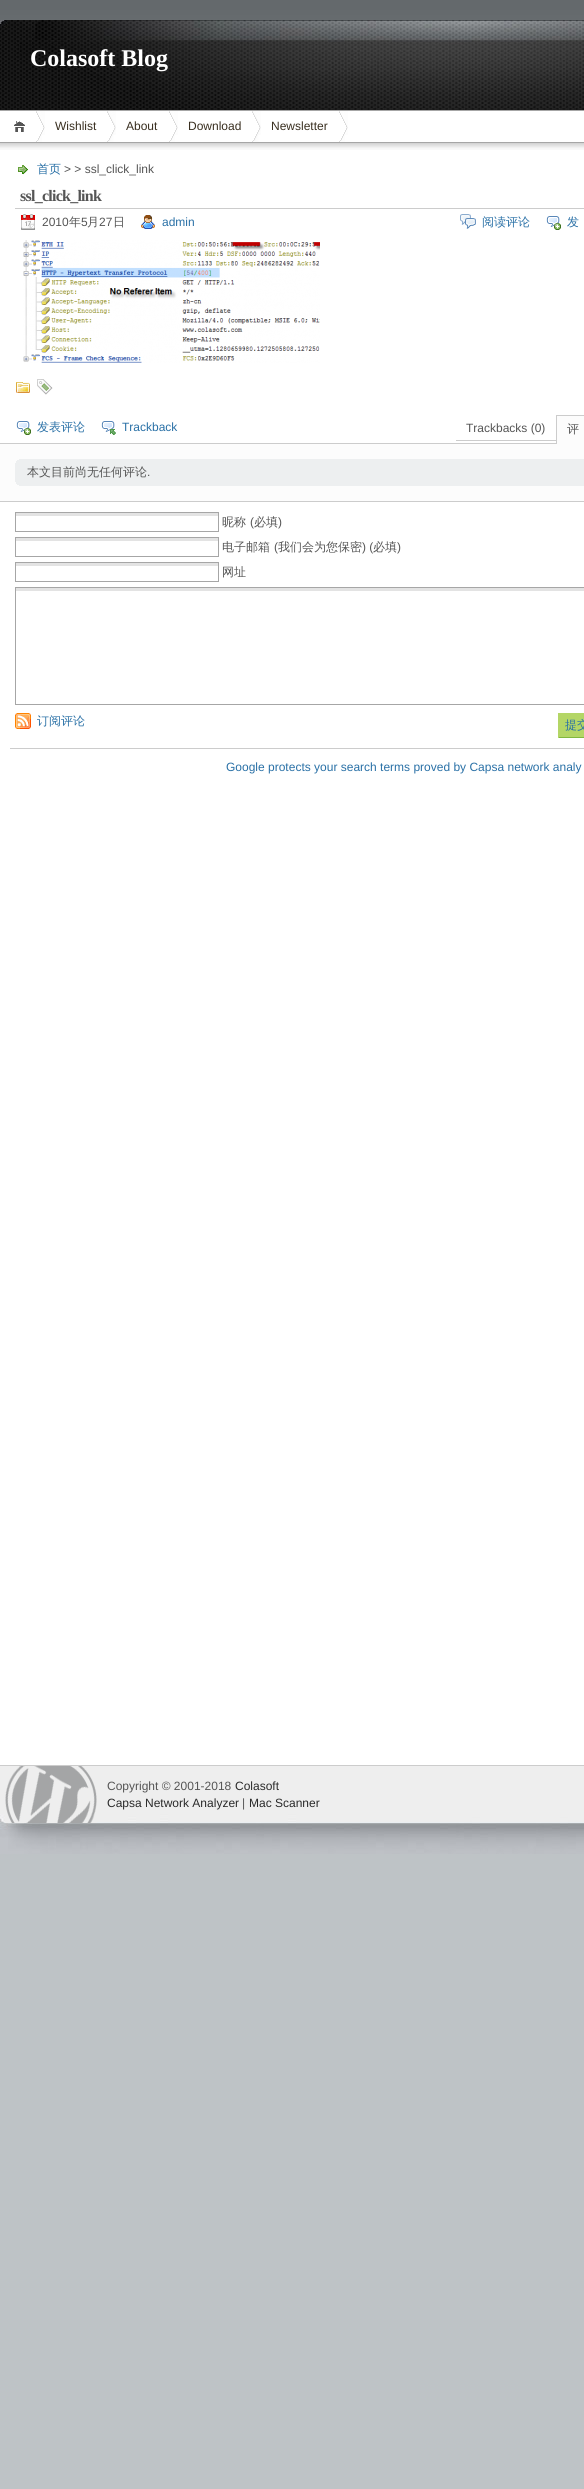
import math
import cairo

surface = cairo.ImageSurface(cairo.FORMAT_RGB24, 584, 2489)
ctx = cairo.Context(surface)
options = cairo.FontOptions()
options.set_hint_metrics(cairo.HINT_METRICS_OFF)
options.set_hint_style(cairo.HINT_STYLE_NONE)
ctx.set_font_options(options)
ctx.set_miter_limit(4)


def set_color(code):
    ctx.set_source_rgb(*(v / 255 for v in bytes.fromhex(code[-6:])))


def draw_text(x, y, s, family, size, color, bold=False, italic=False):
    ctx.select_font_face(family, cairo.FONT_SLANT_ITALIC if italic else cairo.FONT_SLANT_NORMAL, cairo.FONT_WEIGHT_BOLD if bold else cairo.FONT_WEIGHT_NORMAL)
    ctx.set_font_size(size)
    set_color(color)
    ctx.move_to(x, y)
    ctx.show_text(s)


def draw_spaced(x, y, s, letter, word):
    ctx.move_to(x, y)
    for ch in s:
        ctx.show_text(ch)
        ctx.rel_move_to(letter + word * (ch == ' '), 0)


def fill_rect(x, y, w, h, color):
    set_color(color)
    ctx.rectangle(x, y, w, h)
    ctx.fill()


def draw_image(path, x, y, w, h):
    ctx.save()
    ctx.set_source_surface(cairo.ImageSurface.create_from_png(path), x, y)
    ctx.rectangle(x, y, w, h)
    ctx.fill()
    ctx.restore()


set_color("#bec3c6")
ctx.paint()
draw_image("assets/img1.png", 0, 0, 584, 20)
draw_image("assets/img2.png", 0, 20, 584, 90)
fill_rect(0, 110, 584, 1, "#a6a6a6")
draw_text(30, 66, "Colasoft Blog", "Liberation Serif", 24, "#ffffff", bold=True)
fill_rect(0, 111, 584, 31, "#ffffff")
fill_rect(0, 142, 584, 1, "#a6a6a6")
draw_image("assets/img3.png", 14, 121, 11, 11)
draw_image("assets/img4.png", 36, 111, 9, 31)
draw_text(55, 130, "Wishlist", "Liberation Sans", 12, "#382e1f")
draw_image("assets/img5.png", 107, 111, 9, 31)
draw_text(126, 130, "About", "Liberation Sans", 12, "#382e1f")
draw_image("assets/img4.png", 169, 111, 9, 31)
draw_text(188, 130, "Download", "Liberation Sans", 12, "#382e1f")
draw_image("assets/img6.png", 252, 111, 9, 31)
draw_text(271, 130, "Newsletter", "Liberation Sans", 12, "#382e1f")
draw_image("assets/img4.png", 339, 111, 9, 31)
fill_rect(0, 150, 584, 1615, "#ffffff")
draw_image("assets/img7.png", 0, 143, 584, 7)
draw_image("assets/img8.png", 18, 165, 10, 10)
draw_text(37, 173, "首页", "WenQuanYi Zen Hei Medium", 12, "#2970a6")
draw_text(64, 173, "> > ssl_click_link", "Liberation Sans", 12, "#555555")
fill_rect(15, 208, 569, 1, "#cccccc")
ctx.select_font_face("Liberation Serif", cairo.FONT_SLANT_NORMAL, cairo.FONT_WEIGHT_BOLD)
ctx.set_font_size(16)
set_color("#555555")
draw_spaced(20, 201, "ssl_click_link", -0.75, 0)
draw_image("assets/img9.png", 21, 214, 14, 16)
draw_text(42, 226, "2010", "Liberation Sans", 12, "#555555")
draw_text(69, 226, "年", "WenQuanYi Zen Hei Medium", 12, "#555555")
draw_text(81, 226, "5", "Liberation Sans", 12, "#555555")
draw_text(87, 226, "月", "WenQuanYi Zen Hei Medium", 12, "#555555")
draw_text(99, 226, "27", "Liberation Sans", 12, "#555555")
draw_text(113, 226, "日", "WenQuanYi Zen Hei Medium", 12, "#555555")
draw_image("assets/img10.png", 141, 215, 14, 14)
draw_text(162, 226, "admin", "Liberation Sans", 12, "#2970a6")
draw_image("assets/img11.png", 460, 214, 16, 15)
draw_text(482, 226, "阅读评论", "WenQuanYi Zen Hei Medium", 12, "#2970a6")
draw_image("assets/img12.png", 546, 216, 15, 14)
draw_text(567, 226, "发", "WenQuanYi Zen Hei Medium", 12, "#2970a6")
draw_image("assets/img13.png", 23, 240, 297, 123)
draw_image("assets/img14.png", 16, 382, 14, 11)
draw_image("assets/img15.png", 37, 379, 16, 16)
draw_image("assets/img12.png", 16, 421, 15, 14)
draw_text(37, 431, "发表评论", "WenQuanYi Zen Hei Medium", 12, "#2970a6")
draw_image("assets/img16.png", 101, 421, 15, 14)
draw_text(122, 431, "Trackback", "Liberation Sans", 12, "#2970a6")
fill_rect(455, 440, 101, 1, "#cccccc")
fill_rect(455, 440, 1, 1, "#ffffff")
draw_text(466, 432, "Trackbacks (0)", "Liberation Sans", 12, "#555555")
fill_rect(557, 416, 27, 28, "#fcfcfc")
fill_rect(556, 415, 28, 1, "#cccccc")
fill_rect(556, 415, 1, 29, "#cccccc")
draw_text(567, 433, "评", "WenQuanYi Zen Hei Medium", 12, "#555555")
fill_rect(0, 444, 584, 57, "#fcfcfc")
fill_rect(0, 443, 556, 1, "#cccccc")
fill_rect(0, 501, 584, 1, "#cccccc")
fill_rect(15, 459, 569, 27, "#edeff0")
draw_image("assets/img17.png", 15, 459, 4, 27)
draw_text(27, 476, "本文目前尚无任何评论", "WenQuanYi Zen Hei Medium", 12, "#555555")
draw_text(147, 476, ".", "Liberation Sans", 12, "#555555")
fill_rect(15, 513, 204, 3, "#e3e3e3")
ctx.rectangle(15.5, 512.5, 203, 19)
set_color("#a6a6a6")
ctx.set_line_width(1)
ctx.stroke()
draw_text(222, 526, "昵称", "WenQuanYi Zen Hei Medium", 12, "#555555")
draw_text(250, 526, "(", "Liberation Sans", 12, "#555555")
draw_text(254, 526, "必填", "WenQuanYi Zen Hei Medium", 12, "#555555")
draw_text(278, 526, ")", "Liberation Sans", 12, "#555555")
fill_rect(15, 538, 204, 3, "#e3e3e3")
ctx.rectangle(15.5, 537.5, 203, 19)
set_color("#a6a6a6")
ctx.stroke()
draw_text(222, 551, "电子邮箱", "WenQuanYi Zen Hei Medium", 12, "#555555")
draw_text(274, 551, "(", "Liberation Sans", 12, "#555555")
draw_text(278, 551, "我们会为您保密", "WenQuanYi Zen Hei Medium", 12, "#555555")
draw_text(362, 551, ") (", "Liberation Sans", 12, "#555555")
draw_text(373, 551, "必填", "WenQuanYi Zen Hei Medium", 12, "#555555")
draw_text(397, 551, ")", "Liberation Sans", 12, "#555555")
fill_rect(15, 563, 204, 3, "#e3e3e3")
ctx.rectangle(15.5, 562.5, 203, 19)
set_color("#a6a6a6")
ctx.stroke()
draw_text(222, 576, "网址", "WenQuanYi Zen Hei Medium", 12, "#555555")
fill_rect(15, 588, 569, 3, "#e3e3e3")
ctx.rectangle(15.5, 587.5, 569, 117)
set_color("#a6a6a6")
ctx.stroke()
draw_image("assets/img18.png", 15, 713, 16, 16)
draw_text(37, 725, "订阅评论", "WenQuanYi Zen Hei Medium", 12, "#2970a6")
fill_rect(559, 713, 25, 24, "#b4d666")
fill_rect(558, 737, 26, 1, "#81b840")
fill_rect(558, 713, 1, 25, "#b4d666")
draw_text(565, 729, "提交", "WenQuanYi Zen Hei Medium", 12, "#2970a6")
fill_rect(10, 748, 574, 1, "#cccccc")
draw_text(226, 771, "Google protects your search terms proved by Capsa network analy", "Liberation Sans", 12, "#2970a6")
draw_image("assets/img19.png", 0, 1766, 584, 88)
fill_rect(0, 1765, 584, 1, "#cccccc")
draw_image("assets/img20.png", 5, 1766, 92, 57)
draw_text(107, 1790, "Copyright © 2001-2018", "Liberation Sans", 12, "#555555")
draw_text(235, 1790, "Colasoft", "Liberation Sans", 12, "#2a2a2a")
draw_text(107, 1807, "Capsa Network Analyzer", "Liberation Sans", 12, "#2a2a2a")
draw_text(242, 1807, "|", "Liberation Sans", 12, "#555555")
draw_text(249, 1807, "Mac Scanner", "Liberation Sans", 12, "#2a2a2a")
surface.write_to_png("output.png")
